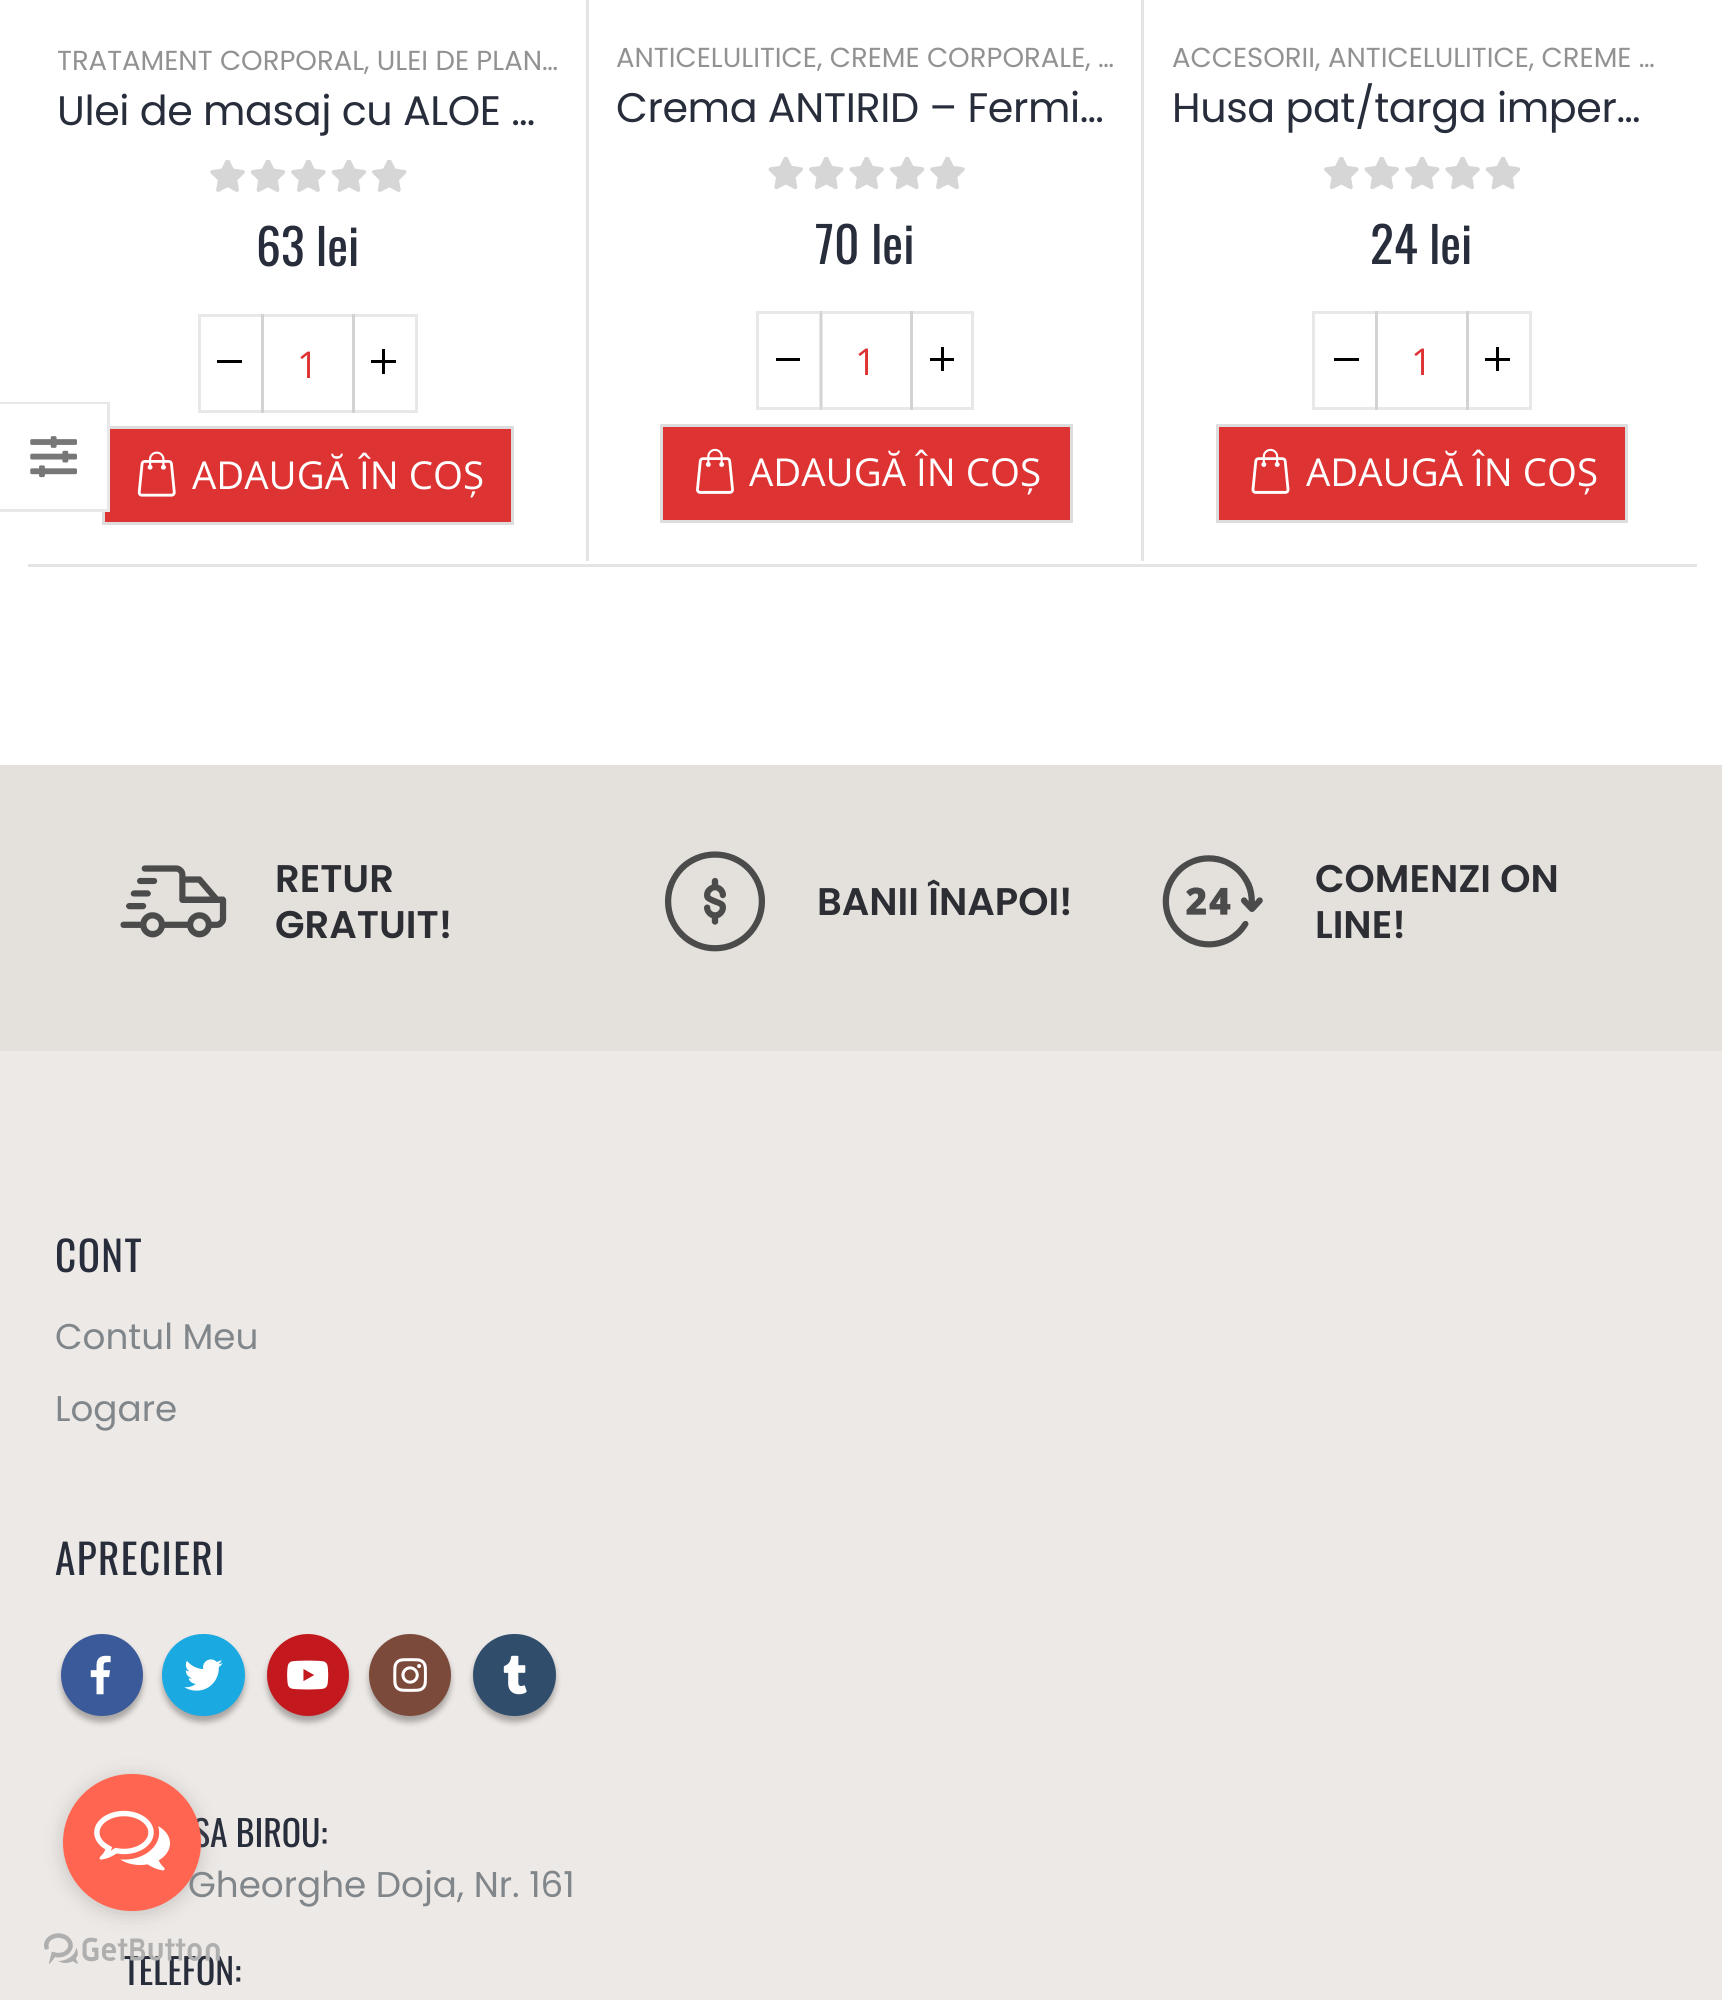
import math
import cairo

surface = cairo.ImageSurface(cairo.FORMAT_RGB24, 1722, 2000)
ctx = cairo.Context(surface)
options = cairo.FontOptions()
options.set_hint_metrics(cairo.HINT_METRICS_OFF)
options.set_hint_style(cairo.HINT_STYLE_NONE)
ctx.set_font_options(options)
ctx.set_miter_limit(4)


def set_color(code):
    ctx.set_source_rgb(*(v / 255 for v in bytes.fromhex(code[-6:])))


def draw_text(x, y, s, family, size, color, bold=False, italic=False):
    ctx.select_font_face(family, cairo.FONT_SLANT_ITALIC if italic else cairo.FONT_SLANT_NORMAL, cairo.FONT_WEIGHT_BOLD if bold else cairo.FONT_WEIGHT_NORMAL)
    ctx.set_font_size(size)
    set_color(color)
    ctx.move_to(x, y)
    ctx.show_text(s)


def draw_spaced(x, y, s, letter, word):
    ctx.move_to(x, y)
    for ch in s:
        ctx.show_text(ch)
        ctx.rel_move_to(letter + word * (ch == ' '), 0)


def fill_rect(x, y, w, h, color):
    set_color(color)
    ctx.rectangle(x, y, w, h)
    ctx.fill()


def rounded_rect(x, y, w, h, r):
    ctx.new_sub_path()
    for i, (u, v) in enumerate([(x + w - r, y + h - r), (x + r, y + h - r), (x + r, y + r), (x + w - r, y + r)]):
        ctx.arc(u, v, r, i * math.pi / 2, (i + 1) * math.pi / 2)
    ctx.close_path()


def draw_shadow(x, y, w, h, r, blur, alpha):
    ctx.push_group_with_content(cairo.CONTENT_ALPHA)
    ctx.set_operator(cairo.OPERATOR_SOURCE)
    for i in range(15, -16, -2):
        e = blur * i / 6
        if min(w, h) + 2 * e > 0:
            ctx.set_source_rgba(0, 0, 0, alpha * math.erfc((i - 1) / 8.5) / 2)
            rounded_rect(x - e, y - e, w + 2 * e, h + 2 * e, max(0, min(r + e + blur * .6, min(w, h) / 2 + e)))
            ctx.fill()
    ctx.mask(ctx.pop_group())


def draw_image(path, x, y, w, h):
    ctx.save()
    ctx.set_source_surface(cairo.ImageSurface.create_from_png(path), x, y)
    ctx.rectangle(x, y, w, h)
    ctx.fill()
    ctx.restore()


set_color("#ffffff")
ctx.paint()
set_color("#dd3333")
ctx.rectangle(103.5, 427.5, 409, 96)
ctx.fill_preserve()
set_color("#dddddd")
ctx.set_line_width(3)
ctx.stroke()
fill_rect(102, 426, 8, 86, "#ffffff")
set_color("#e8e8e8")
ctx.new_path()
ctx.move_to(0, 402)
ctx.line_to(110, 402)
ctx.line_to(107, 404)
ctx.line_to(0, 404)
ctx.close_path()
ctx.fill()
ctx.set_source_rgba(0, 0, 0, 0.09)
ctx.new_path()
ctx.move_to(110, 402)
ctx.line_to(110, 512)
ctx.line_to(107, 509)
ctx.line_to(107, 404)
ctx.close_path()
ctx.fill()
ctx.new_path()
ctx.move_to(110, 512)
ctx.line_to(0, 512)
ctx.line_to(0, 509)
ctx.line_to(107, 509)
ctx.close_path()
ctx.fill()
draw_image("assets/img1.png", 30, 436, 47, 42)
fill_rect(28, 564, 1669, 3, "#e3e4e4")
ctx.save()
ctx.rectangle(58, 36, 500, 47)
ctx.clip()
draw_text(57, 70, "TRATAMENT CORPORAL", "Poppins", 27.5, "#929292")
ctx.restore()
draw_text(364, 70, ", ULEI DE PLAN…", "Poppins", 27.5, "#929292")
ctx.set_font_size(41.25)
set_color("#282d3b")
draw_spaced(57, 125, "Ulei de masaj cu ALOE …", -0.4, 0)
draw_image("assets/img2.png", 210, 160, 197, 32)
draw_text(256, 266, "63 lei", "Oswald", 49.5, "#282d3b")
ctx.rectangle(262.5, 315.5, 91, 96)
set_color("#e8e8e8")
ctx.stroke()
ctx.rectangle(199.5, 315.5, 63, 96)
ctx.set_source_rgba(0, 0, 0, 0.09)
ctx.stroke()
fill_rect(217, 360, 25, 3, "#000000")
draw_text(297, 378, "1", "Open Sans", 37, "#dd3333")
ctx.rectangle(353.5, 315.5, 63, 96)
ctx.set_source_rgba(0, 0, 0, 0.09)
ctx.stroke()
fill_rect(371, 360, 25, 3, "#000000")
fill_rect(382, 349, 3, 25, "#000000")
draw_image("assets/img3.png", 137, 451, 39, 46)
draw_text(192, 489, "ADAUGĂ ÎN COȘ", "Open Sans", 38.5, "#ffffff")
fill_rect(586, 0, 3, 561, "#e3e4e4")
draw_text(616, 67, "ANTICELULITICE, CREME CORPORALE, …", "Poppins", 27.5, "#929292")
ctx.set_font_size(41.25)
set_color("#282d3b")
draw_spaced(616, 122, "Crema ANTIRID – Fermi…", -0.4, 0)
draw_image("assets/img4.png", 768, 157, 197, 33)
draw_text(815, 264, "70 lei", "Oswald", 49.5, "#282d3b")
ctx.rectangle(821.5, 312.5, 90, 96)
set_color("#e8e8e8")
ctx.stroke()
ctx.rectangle(757.5, 312.5, 63, 96)
ctx.set_source_rgba(0, 0, 0, 0.09)
ctx.stroke()
fill_rect(776, 358, 24, 3, "#000000")
draw_text(855, 375, "1", "Open Sans", 37, "#dd3333")
ctx.rectangle(911.5, 312.5, 61, 96)
ctx.set_source_rgba(0, 0, 0, 0.09)
ctx.stroke()
fill_rect(930, 358, 24, 3, "#000000")
fill_rect(941, 347, 3, 24, "#000000")
set_color("#dd3333")
ctx.rectangle(661.5, 425.5, 410, 96)
ctx.fill_preserve()
set_color("#dddddd")
ctx.stroke()
draw_image("assets/img5.png", 696, 448, 38, 46)
draw_text(749, 486, "ADAUGĂ ÎN COȘ", "Open Sans", 38.5, "#ffffff")
fill_rect(1141, 0, 3, 561, "#e3e4e4")
draw_text(1172, 67, "ACCESORII, ANTICELULITICE, CREME …", "Poppins", 27.5, "#929292")
ctx.set_font_size(41.25)
set_color("#282d3b")
draw_spaced(1172, 122, "Husa pat/targa imper…", -0.4, 0)
draw_image("assets/img6.png", 1324, 157, 197, 33)
draw_text(1370, 264, "24 lei", "Oswald", 49.5, "#282d3b")
ctx.rectangle(1376.5, 312.5, 91, 96)
set_color("#e8e8e8")
ctx.stroke()
ctx.rectangle(1313.5, 312.5, 63, 96)
ctx.set_source_rgba(0, 0, 0, 0.09)
ctx.stroke()
fill_rect(1334, 358, 25, 3, "#000000")
draw_text(1411, 375, "1", "Open Sans", 37, "#dd3333")
ctx.rectangle(1467.5, 312.5, 63, 96)
ctx.set_source_rgba(0, 0, 0, 0.09)
ctx.stroke()
fill_rect(1485, 358, 25, 3, "#000000")
fill_rect(1496, 347, 3, 24, "#000000")
set_color("#dd3333")
ctx.rectangle(1217.5, 425.5, 409, 96)
ctx.fill_preserve()
set_color("#dddddd")
ctx.stroke()
draw_image("assets/img7.png", 1251, 448, 39, 46)
draw_text(1306, 486, "ADAUGĂ ÎN COȘ", "Open Sans", 38.5, "#ffffff")
fill_rect(0, 765, 1722, 286, "#e4e1dd")
draw_image("assets/img8.png", 120, 865, 107, 73)
draw_text(275, 892, "RETUR", "Poppins SemiBold", 38.5, "#2c2e34")
draw_text(275, 938, "GRATUIT!", "Poppins SemiBold", 38.5, "#2c2e34")
draw_image("assets/img9.png", 664, 851, 102, 101)
draw_text(817, 915, "BANII ÎNAPOI!", "Poppins SemiBold", 38.5, "#2c2e34")
draw_image("assets/img10.png", 1162, 855, 101, 93)
draw_text(1315, 892, "COMENZI ON", "Poppins SemiBold", 38.5, "#2c2e34")
draw_text(1315, 938, "LINE!", "Poppins SemiBold", 38.5, "#2c2e34")
fill_rect(0, 1051, 1722, 949, "#ede9e6")
ctx.select_font_face("Oswald")
ctx.set_font_size(41.25)
set_color("#282d3b")
draw_spaced(55, 1272, "CONT", 1.4, 0)
draw_text(55, 1349, "Contul Meu", "Poppins", 35.75, "#80868a")
draw_text(55, 1421, "Logare", "Poppins", 35.75, "#80868a")
ctx.select_font_face("Oswald")
ctx.set_font_size(41.25)
set_color("#282d3b")
draw_spaced(55, 1575, "APRECIERI", 1.4, 0)
set_color("#000000")
draw_shadow(61, 1639, 82, 83, 41, 3, 0.3)
set_color("#3b5a9a")
ctx.arc(102, 1675, 41, 0, 2 * math.pi)
ctx.fill()
draw_image("assets/img11.png", 90, 1655, 21, 40)
set_color("#000000")
draw_shadow(162, 1639, 83, 83, 41.5, 3, 0.3)
set_color("#1aa9e1")
rounded_rect(162, 1634, 83, 82, 41)
ctx.fill()
draw_image("assets/img12.png", 184, 1659, 39, 32)
set_color("#000000")
draw_shadow(267, 1639, 82, 83, 41, 3, 0.3)
set_color("#c3191e")
ctx.arc(308, 1675, 41, 0, 2 * math.pi)
ctx.fill()
draw_image("assets/img13.png", 287, 1660, 42, 30)
set_color("#000000")
draw_shadow(369, 1639, 82, 83, 41, 3, 0.3)
set_color("#7c4a3a")
ctx.arc(410, 1675, 41, 0, 2 * math.pi)
ctx.fill()
draw_image("assets/img14.png", 393, 1658, 34, 34)
set_color("#000000")
draw_shadow(473, 1639, 83, 83, 41.5, 3, 0.3)
set_color("#304e6c")
rounded_rect(473, 1634, 83, 82, 41)
ctx.fill()
draw_image("assets/img15.png", 503, 1655, 24, 40)
draw_text(193, 1847, "SA BIROU:", "Oswald", 35.75, "#282d3b")
draw_text(188, 1897, "Gheorghe Doja, Nr. 161", "Poppins", 35.75, "#80868a")
draw_text(124, 1985, "TELEFON:", "Oswald", 35.75, "#282d3b")
draw_image("assets/img17.png", 44, 1933, 176, 31)
set_color("#888888")
draw_shadow(63, 1777, 138, 137, 68.5, 9.5, 0.4)
set_color("#ff6550")
rounded_rect(63, 1774, 138, 137, 68.5)
ctx.fill()
draw_image("assets/img16.png", 94, 1810, 76, 61)
surface.write_to_png("output.png")
